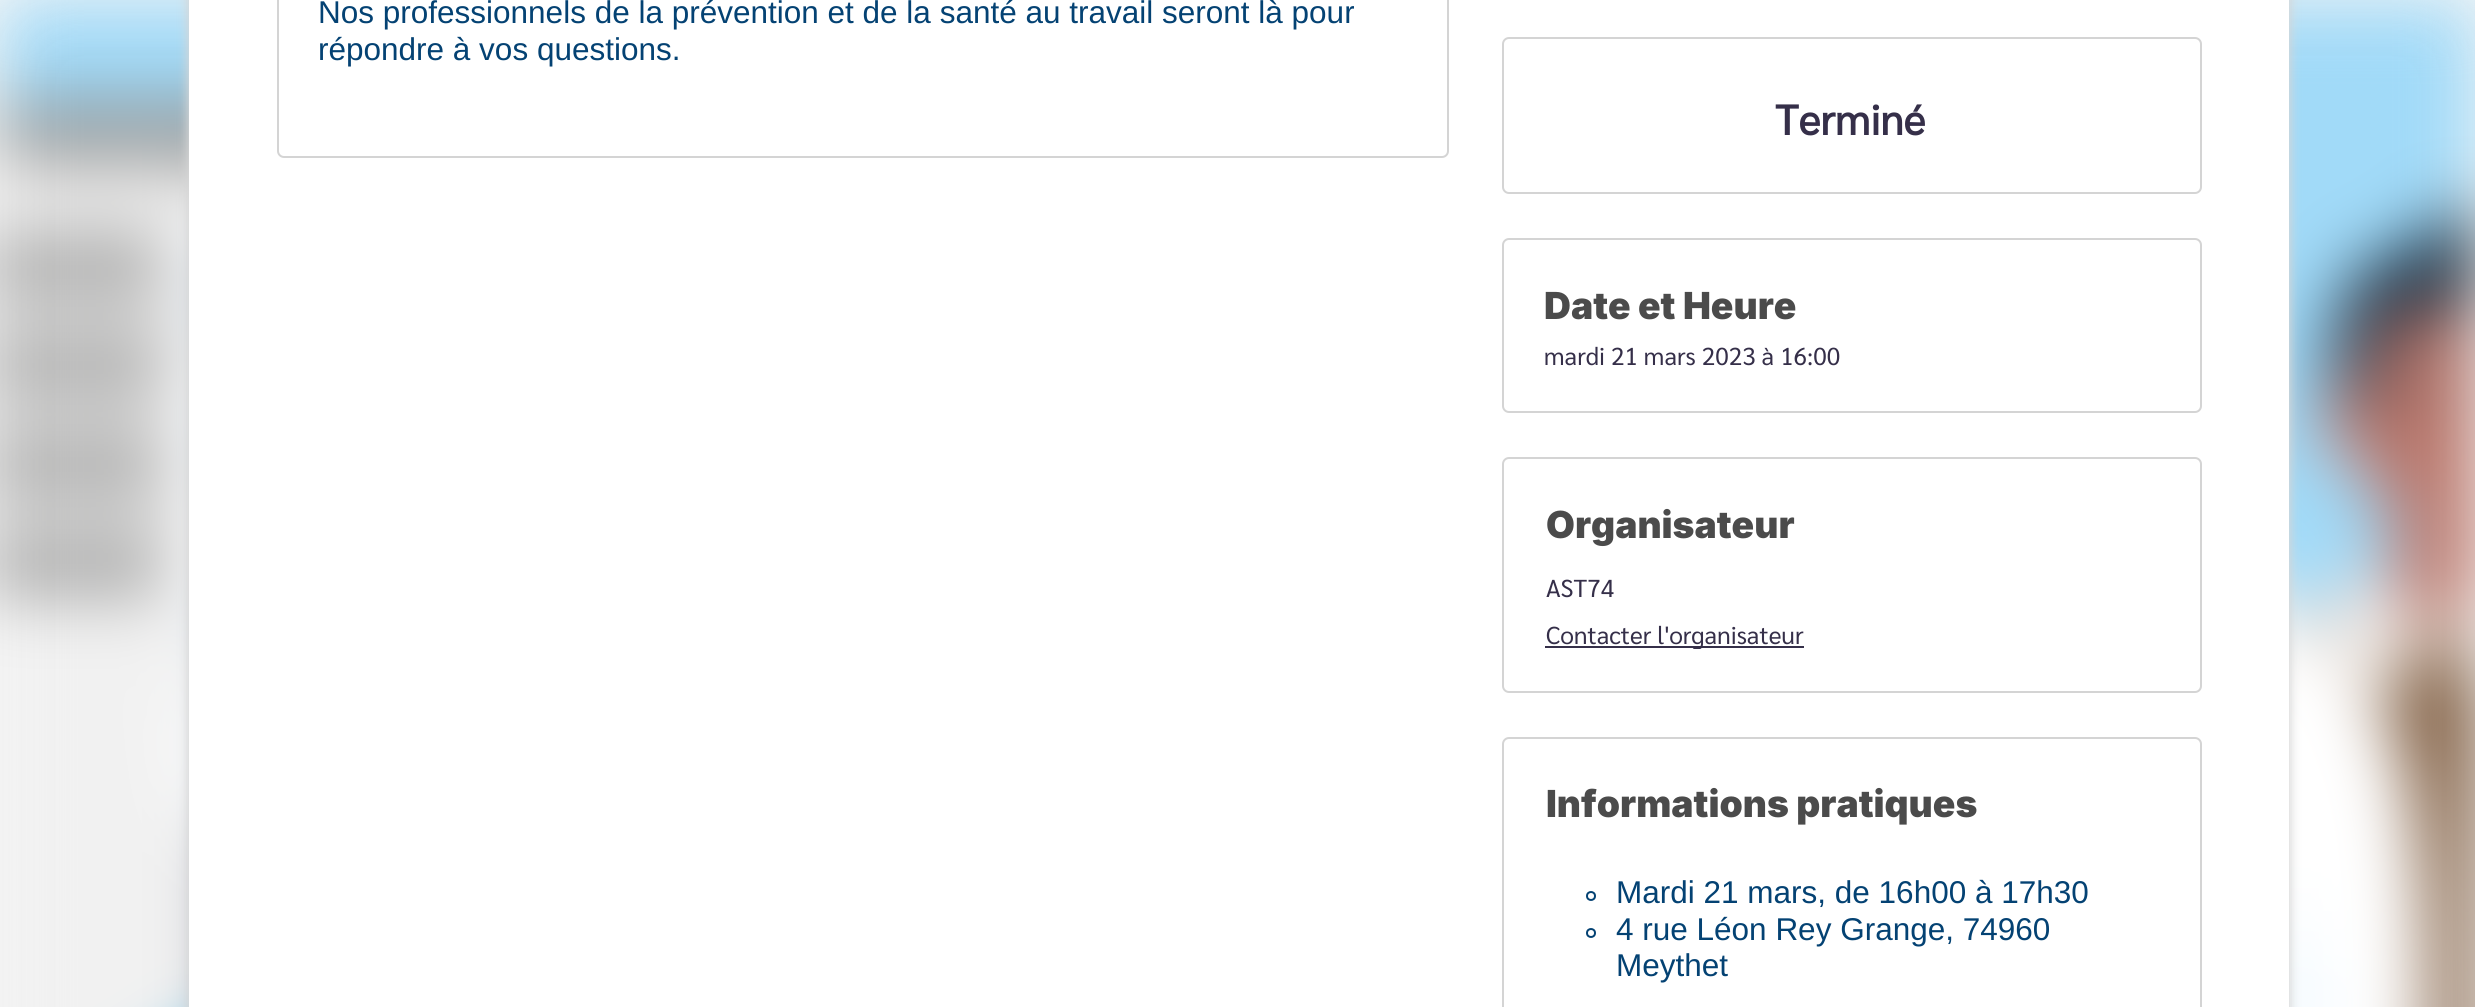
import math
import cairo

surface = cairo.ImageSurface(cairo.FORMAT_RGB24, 2475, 1007)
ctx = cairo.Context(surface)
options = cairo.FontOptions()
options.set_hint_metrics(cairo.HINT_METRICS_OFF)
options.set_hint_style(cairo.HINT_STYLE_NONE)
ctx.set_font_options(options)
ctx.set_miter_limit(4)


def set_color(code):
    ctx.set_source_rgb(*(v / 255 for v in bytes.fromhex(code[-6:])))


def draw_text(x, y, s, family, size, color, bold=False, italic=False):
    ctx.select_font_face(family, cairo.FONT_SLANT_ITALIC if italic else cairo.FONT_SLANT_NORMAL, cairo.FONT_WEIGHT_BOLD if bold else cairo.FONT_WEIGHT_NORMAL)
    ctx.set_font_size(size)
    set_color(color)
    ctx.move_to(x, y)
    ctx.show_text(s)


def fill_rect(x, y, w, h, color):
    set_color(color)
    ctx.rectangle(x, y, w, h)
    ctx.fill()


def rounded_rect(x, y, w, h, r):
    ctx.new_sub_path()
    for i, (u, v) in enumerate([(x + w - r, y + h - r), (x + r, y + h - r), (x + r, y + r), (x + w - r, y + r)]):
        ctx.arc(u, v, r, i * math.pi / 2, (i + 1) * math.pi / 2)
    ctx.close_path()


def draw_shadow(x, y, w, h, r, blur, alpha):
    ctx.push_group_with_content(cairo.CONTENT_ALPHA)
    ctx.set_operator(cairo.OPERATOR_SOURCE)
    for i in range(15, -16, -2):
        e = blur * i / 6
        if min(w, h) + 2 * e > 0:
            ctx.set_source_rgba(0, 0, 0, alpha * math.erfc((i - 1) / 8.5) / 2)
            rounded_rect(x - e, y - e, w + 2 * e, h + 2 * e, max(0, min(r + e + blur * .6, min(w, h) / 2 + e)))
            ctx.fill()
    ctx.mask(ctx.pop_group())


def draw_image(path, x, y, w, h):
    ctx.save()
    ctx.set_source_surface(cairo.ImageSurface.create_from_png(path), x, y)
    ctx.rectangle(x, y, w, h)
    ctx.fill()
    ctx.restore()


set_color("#f5f5f5")
ctx.paint()
draw_image("assets/img1.png", 0, 0, 2475, 1007)
set_color("#d6d6d6")
draw_shadow(187, -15, 2104, 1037, 0, 5, 1)
fill_rect(189, 0, 2100, 1007, "#ffffff")
rounded_rect(278, -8, 1170, 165, 6)
set_color("#d4d4d4")
ctx.stroke()
draw_text(318, 23, "Nos professionnels de la prévention et de la santé au travail seront là pour", "Liberation Sans", 31.5, "#044273")
draw_text(318, 60, "répondre à vos questions.", "Liberation Sans", 31.5, "#044273")
rounded_rect(1503, 38, 698, 155, 6)
set_color("#d4d4d4")
ctx.stroke()
draw_text(1775, 135, "Terminé", "Sarabun", 42, "#352f49", bold=True)
rounded_rect(1503, 239, 698, 173, 6)
set_color("#d4d4d4")
ctx.stroke()
draw_text(1544, 319, "Date et Heure", "Inter Black", 37.25, "#4b4b4b")
draw_text(1544, 365, "mardi 21 mars 2023 à 16:00", "Sarabun", 24.5, "#352f49")
rounded_rect(1503, 458, 698, 234, 6)
set_color("#d4d4d4")
ctx.stroke()
draw_text(1546, 538, "Organisateur", "Inter Black", 37.25, "#4b4b4b")
draw_text(1546, 597, "AST74", "Sarabun", 24.5, "#352f49")
fill_rect(1545, 646, 259, 2, "#352f49")
ctx.save()
ctx.rectangle(1545, 569, 611, 80)
ctx.clip()
draw_text(1546, 644, "Contacter l'organisateur", "Sarabun", 24.5, "#352f49")
ctx.restore()
rounded_rect(1503, 738, 698, 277, 6)
set_color("#d4d4d4")
ctx.stroke()
draw_text(1546, 817, "Informations pratiques", "Inter Black", 37.25, "#4b4b4b")
ctx.new_path()
ctx.arc(1591, 896, 4, 0, 2 * math.pi)
set_color("#044273")
ctx.stroke()
draw_text(1616, 903, "Mardi 21 mars, de 16h00 à 17h30", "Liberation Sans", 31.5, "#044273")
ctx.new_path()
ctx.arc(1591, 933, 4, 0, 2 * math.pi)
ctx.stroke()
draw_text(1616, 940, "4 rue Léon Rey Grange, 74960", "Liberation Sans", 31.5, "#044273")
draw_text(1616, 976, "Meythet", "Liberation Sans", 31.5, "#044273")
surface.write_to_png("output.png")
